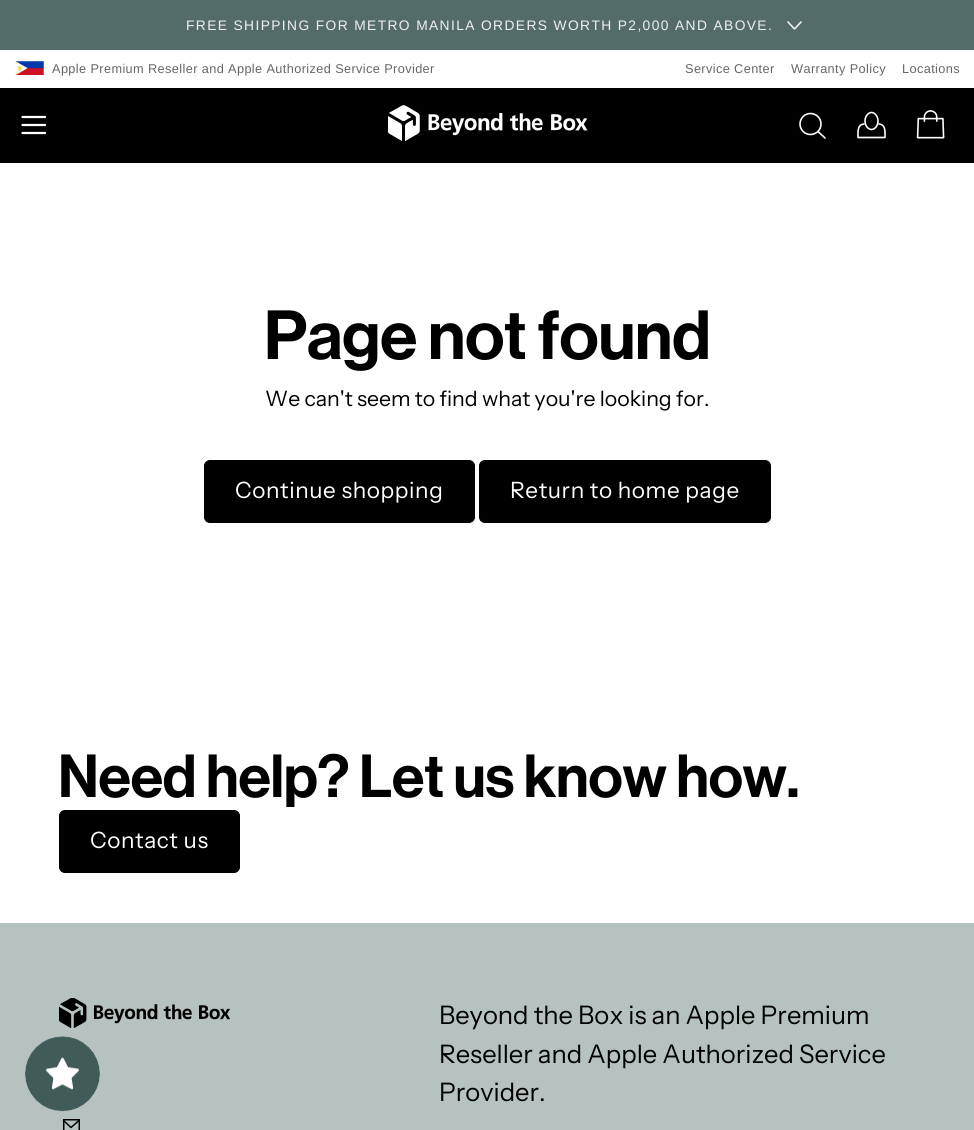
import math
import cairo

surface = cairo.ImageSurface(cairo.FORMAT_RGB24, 974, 1130)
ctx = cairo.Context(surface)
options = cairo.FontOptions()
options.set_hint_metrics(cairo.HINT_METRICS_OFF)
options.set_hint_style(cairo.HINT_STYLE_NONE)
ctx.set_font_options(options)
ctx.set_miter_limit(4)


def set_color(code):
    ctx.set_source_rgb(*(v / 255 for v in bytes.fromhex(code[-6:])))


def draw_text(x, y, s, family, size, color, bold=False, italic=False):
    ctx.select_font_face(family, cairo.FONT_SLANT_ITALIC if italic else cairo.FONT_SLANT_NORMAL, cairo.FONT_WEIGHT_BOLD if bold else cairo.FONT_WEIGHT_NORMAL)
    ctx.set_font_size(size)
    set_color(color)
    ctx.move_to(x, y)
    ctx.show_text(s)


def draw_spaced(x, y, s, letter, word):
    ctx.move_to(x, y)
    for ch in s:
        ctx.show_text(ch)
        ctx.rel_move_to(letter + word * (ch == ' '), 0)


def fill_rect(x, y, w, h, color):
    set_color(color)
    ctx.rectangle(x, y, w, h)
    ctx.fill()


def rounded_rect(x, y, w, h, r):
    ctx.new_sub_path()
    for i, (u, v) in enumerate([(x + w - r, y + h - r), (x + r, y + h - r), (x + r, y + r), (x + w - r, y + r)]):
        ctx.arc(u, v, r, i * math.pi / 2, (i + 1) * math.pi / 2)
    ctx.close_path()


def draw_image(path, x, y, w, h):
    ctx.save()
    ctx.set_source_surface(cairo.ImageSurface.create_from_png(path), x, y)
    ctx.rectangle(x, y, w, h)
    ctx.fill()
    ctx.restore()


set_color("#ffffff")
ctx.paint()
fill_rect(0, 0, 974, 50, "#546c69")
ctx.select_font_face("Liberation Sans")
ctx.set_font_size(13.8)
set_color("#eef0f0")
draw_spaced(186, 30, "FREE SHIPPING FOR METRO MANILA ORDERS WORTH P2,000 AND ABOVE.", 1.38, 0)
ctx.new_path()
ctx.move_to(801, 22)
ctx.line_to(794.5, 29)
ctx.line_to(788, 22)
ctx.set_line_width(1.6)
ctx.set_line_cap(cairo.LINE_CAP_ROUND)
ctx.set_line_join(cairo.LINE_JOIN_ROUND)
ctx.stroke()
draw_image("assets/img1.png", 15, 61, 29, 14)
ctx.set_font_size(12.75)
set_color("#666666")
draw_spaced(52, 73, "Apple Premium Reseller and Apple Authorized Service Provider", 0.38, 0)
draw_spaced(685, 73, "Service Center", 0.38, 0)
draw_spaced(791, 73, "Warranty Policy", 0.38, 0)
draw_spaced(902, 73, "Locations", 0.38, 0)
fill_rect(0, 88, 974, 75, "#000000")
ctx.new_path()
ctx.move_to(22.5, 117)
ctx.line_to(45, 117)
ctx.move_to(22.5, 125)
ctx.line_to(45, 125)
ctx.move_to(22.5, 133)
ctx.line_to(45, 133)
set_color("#ffffff")
ctx.set_line_width(2.2)
ctx.stroke()
draw_image("assets/img2.png", 388, 105, 200, 36)
ctx.arc(810.5, 124, 10.5, 0, 2 * math.pi)
ctx.set_line_width(1.6)
ctx.set_line_cap(cairo.LINE_CAP_BUTT)
ctx.set_line_join(cairo.LINE_JOIN_MITER)
ctx.stroke()
ctx.new_path()
ctx.move_to(818.5, 132)
ctx.line_to(825, 138)
ctx.set_line_cap(cairo.LINE_CAP_ROUND)
ctx.set_line_join(cairo.LINE_JOIN_ROUND)
ctx.stroke()
ctx.new_path()
ctx.move_to(871.5, 112.5)
ctx.curve_to(875, 112.5, 878, 116.5, 878, 121)
ctx.curve_to(878, 125.5, 875, 129.5, 871.5, 129.5)
ctx.curve_to(868, 129.5, 865, 125.5, 865, 121)
ctx.curve_to(865, 116.5, 868, 112.5, 871.5, 112.5)
ctx.close_path()
ctx.set_line_cap(cairo.LINE_CAP_BUTT)
ctx.set_line_join(cairo.LINE_JOIN_MITER)
ctx.stroke()
ctx.new_path()
ctx.move_to(879, 124)
ctx.curve_to(886, 124.5, 885, 132.5, 885, 137.5)
ctx.line_to(858, 137.5)
ctx.curve_to(858, 132.5, 857, 124.5, 864, 124)
ctx.set_line_cap(cairo.LINE_CAP_ROUND)
ctx.set_line_join(cairo.LINE_JOIN_ROUND)
ctx.stroke()
draw_image("assets/img3.png", 916, 110, 29, 29)
ctx.select_font_face("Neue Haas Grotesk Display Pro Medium")
ctx.set_font_size(68)
set_color("#000000")
draw_spaced(264, 359, "Page not found", -0.25, 0)
draw_text(265, 406, "We can't seem to find what you're looking for.", "Instrument Sans", 21.25, "#000000")
rounded_rect(204.5, 460.5, 270, 62, 5.5)
ctx.fill_preserve()
ctx.set_line_width(1)
ctx.set_line_cap(cairo.LINE_CAP_BUTT)
ctx.set_line_join(cairo.LINE_JOIN_MITER)
ctx.stroke()
ctx.set_font_size(22.5)
set_color("#ffffff")
draw_spaced(235, 498, "Continue shopping", 0.6, 0)
set_color("#000000")
rounded_rect(479.5, 460.5, 291, 62, 5.5)
ctx.fill_preserve()
ctx.stroke()
set_color("#ffffff")
draw_spaced(510, 498, "Return to home page", 0.6, 0)
fill_rect(0, 923, 974, 207, "#b5c2c0")
ctx.select_font_face("Neue Haas Grotesk Display Pro Medium")
ctx.set_font_size(59.5)
set_color("#000000")
draw_spaced(58, 797, "Need help? Let us know how.", -0.25, 0)
rounded_rect(59.5, 810.5, 180, 62, 5.5)
ctx.fill_preserve()
ctx.stroke()
ctx.select_font_face("Instrument Sans")
ctx.set_font_size(22.5)
set_color("#ffffff")
draw_spaced(90, 848, "Contact us", 0.6, 0)
draw_image("assets/img4.png", 59, 998, 171, 30)
ctx.rectangle(63.75, 1119.75, 15.5, 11.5)
set_color("#000000")
ctx.set_line_width(1.5)
ctx.stroke()
ctx.new_path()
ctx.move_to(63.5, 1120.5)
ctx.line_to(71, 1127.5)
ctx.line_to(79, 1120.5)
ctx.set_line_cap(cairo.LINE_CAP_ROUND)
ctx.set_line_join(cairo.LINE_JOIN_ROUND)
ctx.stroke()
draw_text(439, 1024, "Beyond the Box is an Apple Premium", "Instrument Sans", 25.5, "#000000")
draw_text(439, 1063, "Reseller and Apple Authorized Service", "Instrument Sans", 25.5, "#000000")
draw_text(439, 1101, "Provider.", "Instrument Sans", 25.5, "#000000")
draw_image("assets/img5.png", 25, 1036, 75, 76)
surface.write_to_png("output.png")
